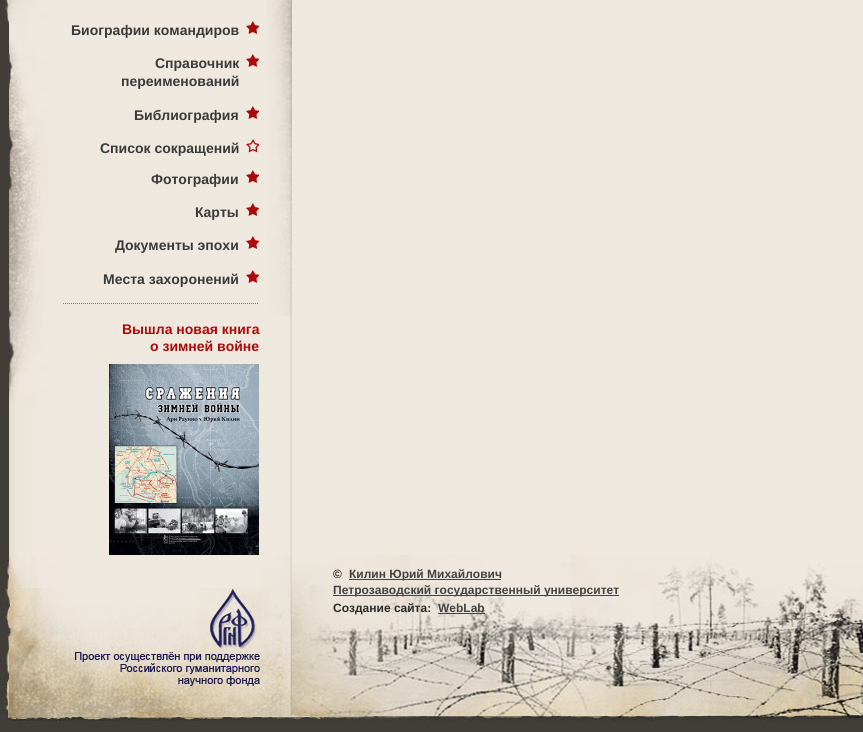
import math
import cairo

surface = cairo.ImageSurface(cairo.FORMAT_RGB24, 863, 732)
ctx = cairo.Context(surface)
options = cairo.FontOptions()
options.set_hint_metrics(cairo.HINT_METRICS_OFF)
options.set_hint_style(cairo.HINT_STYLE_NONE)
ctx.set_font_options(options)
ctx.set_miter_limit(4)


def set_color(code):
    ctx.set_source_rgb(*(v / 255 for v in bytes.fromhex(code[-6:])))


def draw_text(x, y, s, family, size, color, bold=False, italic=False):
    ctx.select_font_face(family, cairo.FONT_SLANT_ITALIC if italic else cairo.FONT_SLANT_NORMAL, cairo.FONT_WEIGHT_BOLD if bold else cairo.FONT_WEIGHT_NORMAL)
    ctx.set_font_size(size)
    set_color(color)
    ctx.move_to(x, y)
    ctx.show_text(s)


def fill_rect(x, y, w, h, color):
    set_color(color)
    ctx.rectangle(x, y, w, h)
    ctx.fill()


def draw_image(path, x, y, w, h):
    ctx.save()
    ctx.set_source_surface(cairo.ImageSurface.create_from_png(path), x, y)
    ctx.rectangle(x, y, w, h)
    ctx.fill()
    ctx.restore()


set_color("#eee8df")
ctx.paint()
draw_image("assets/img1.png", 0, 407, 31, 148)
draw_image("assets/img2.png", 0, 0, 48, 407)
draw_image("assets/img3.png", 246, 21, 13, 13)
draw_text(71, 35, "Биографии командиров", "Liberation Sans", 14, "#3a3a3a", bold=True)
draw_image("assets/img3.png", 246, 54, 13, 13)
draw_text(155, 68, "Справочник", "Liberation Sans", 14, "#3a3a3a", bold=True)
draw_text(121, 86, "переименований", "Liberation Sans", 14, "#3a3a3a", bold=True)
draw_image("assets/img3.png", 246, 106, 13, 13)
draw_text(134, 120, "Библиография", "Liberation Sans", 14, "#3a3a3a", bold=True)
draw_image("assets/img4.png", 246, 139, 13, 14)
draw_text(100, 153, "Список сокращений", "Liberation Sans", 14, "#3a3a3a", bold=True)
draw_image("assets/img3.png", 246, 170, 13, 13)
draw_text(151, 184, "Фотографии", "Liberation Sans", 14, "#3a3a3a", bold=True)
draw_image("assets/img3.png", 246, 203, 13, 13)
draw_text(195, 217, "Карты", "Liberation Sans", 14, "#3a3a3a", bold=True)
draw_image("assets/img3.png", 246, 236, 13, 13)
draw_text(115, 250, "Документы эпохи", "Liberation Sans", 14, "#3a3a3a", bold=True)
draw_image("assets/img3.png", 246, 270, 13, 13)
draw_text(103, 284, "Места захоронений", "Liberation Sans", 14, "#3a3a3a", bold=True)
ctx.new_path()
ctx.move_to(63, 303.5)
ctx.line_to(259, 303.5)
set_color("#7c7d79")
ctx.set_line_width(1)
ctx.set_dash([1, 1])
ctx.stroke()
draw_text(122, 334, "Вышла новая книга", "Liberation Sans", 14, "#aa0a09", bold=True)
draw_text(150, 351, "о зимней войне", "Liberation Sans", 14, "#aa0a09", bold=True)
draw_image("assets/img5.png", 109, 364, 150, 191)
fill_rect(290, 316, 2, 239, "#e1dacf")
draw_image("assets/img6.png", 267, 0, 25, 316)
draw_image("assets/img7.png", 0, 555, 63, 166)
draw_image("assets/img8.png", 63, 587, 196, 134)
draw_image("assets/img9.png", 259, 555, 33, 166)
draw_image("assets/img10.png", 292, 563, 41, 158)
draw_image("assets/img11.png", 333, 555, 530, 166)
draw_text(333, 578, "©", "Liberation Sans", 12, "#2b2a29", bold=True)
fill_rect(349, 579, 152, 1, "#424242")
draw_text(349, 578, "Килин Юрий Михайлович", "Liberation Sans", 12, "#424242", bold=True)
fill_rect(333, 595, 286, 1, "#424242")
draw_text(333, 594, "Петрозаводский государственный университет", "Liberation Sans", 12, "#424242", bold=True)
draw_text(333, 612, "Создание сайта:", "Liberation Sans", 12, "#2b2a29", bold=True)
draw_text(438, 612, "WebLab", "Liberation Sans", 12, "#424242", bold=True)
fill_rect(438, 613, 47, 1, "#424242")
fill_rect(0, 721, 863, 11, "#403e39")
surface.write_to_png("output.png")
